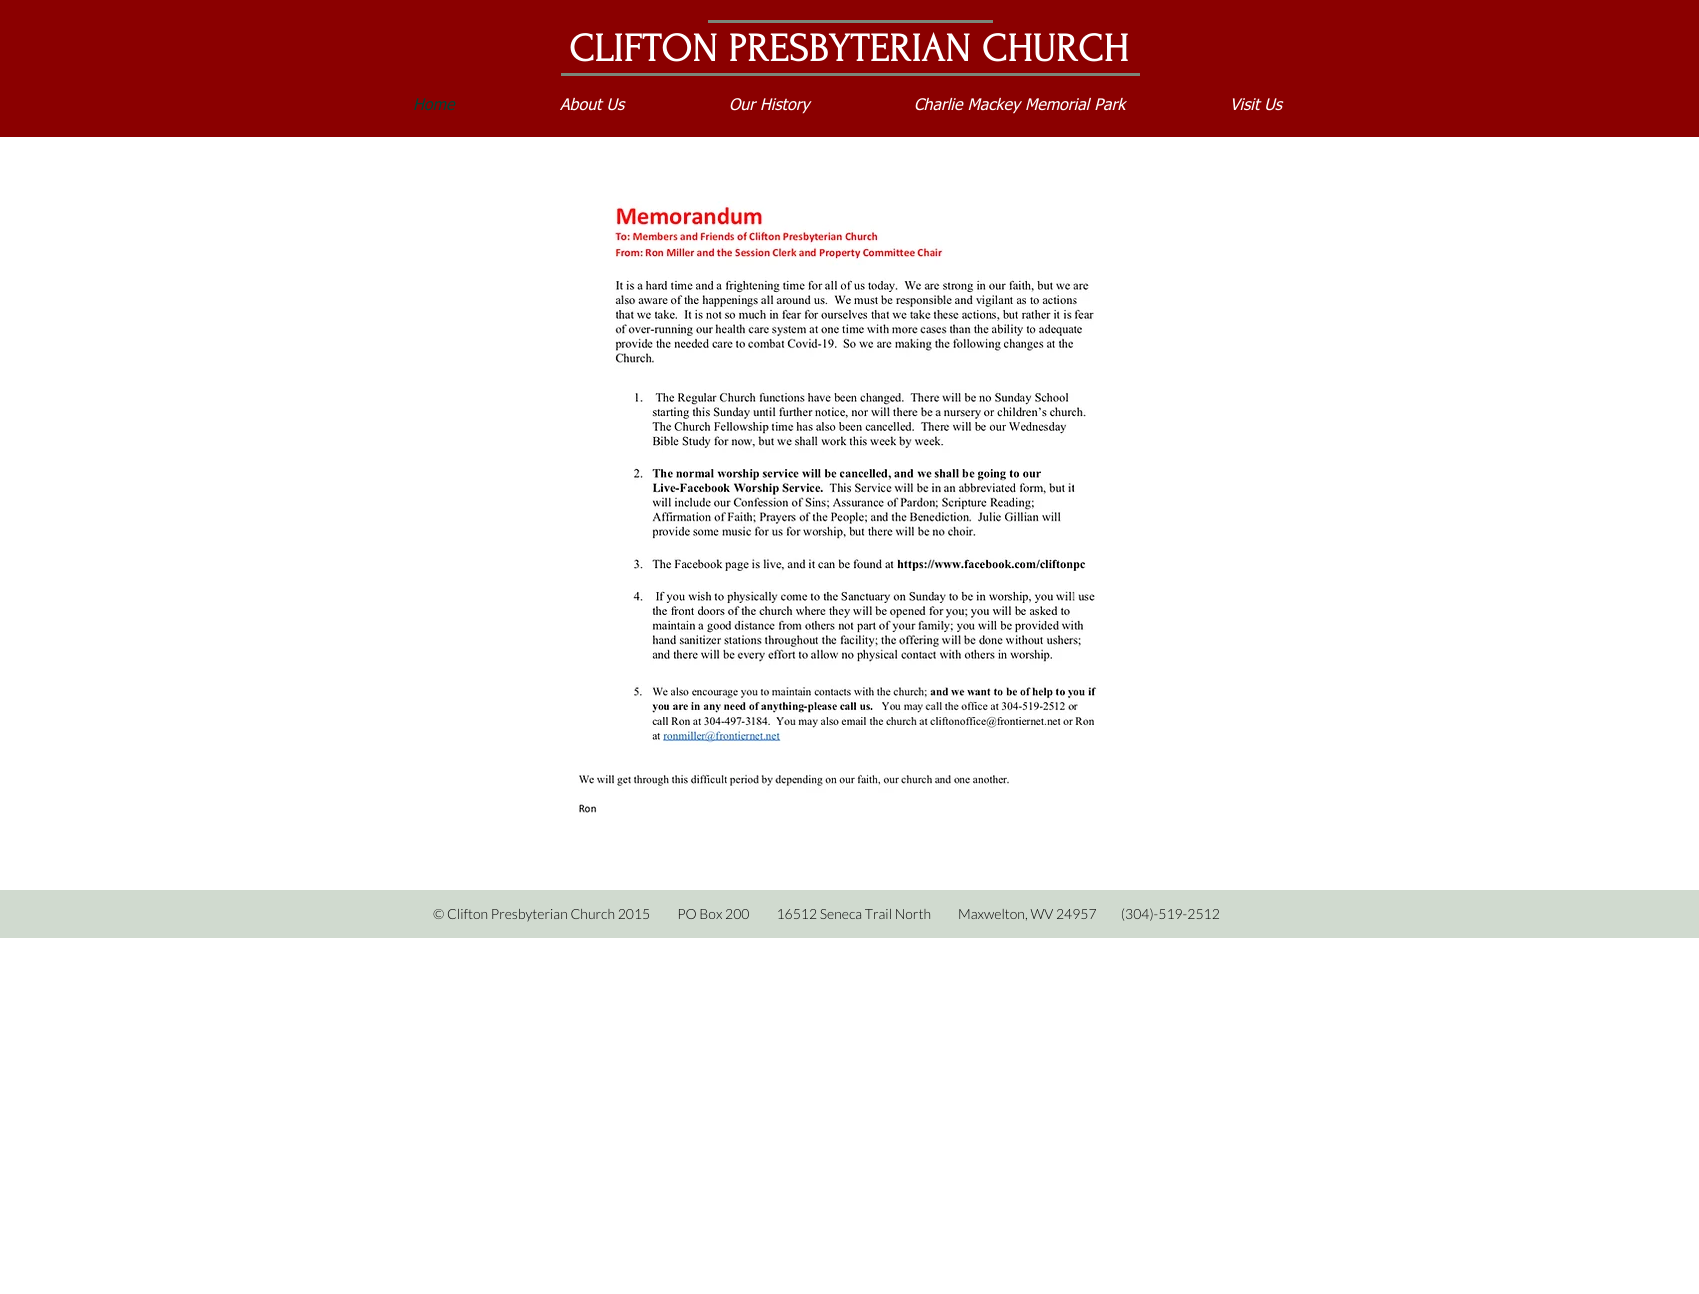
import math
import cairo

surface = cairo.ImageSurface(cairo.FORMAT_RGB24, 1699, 1294)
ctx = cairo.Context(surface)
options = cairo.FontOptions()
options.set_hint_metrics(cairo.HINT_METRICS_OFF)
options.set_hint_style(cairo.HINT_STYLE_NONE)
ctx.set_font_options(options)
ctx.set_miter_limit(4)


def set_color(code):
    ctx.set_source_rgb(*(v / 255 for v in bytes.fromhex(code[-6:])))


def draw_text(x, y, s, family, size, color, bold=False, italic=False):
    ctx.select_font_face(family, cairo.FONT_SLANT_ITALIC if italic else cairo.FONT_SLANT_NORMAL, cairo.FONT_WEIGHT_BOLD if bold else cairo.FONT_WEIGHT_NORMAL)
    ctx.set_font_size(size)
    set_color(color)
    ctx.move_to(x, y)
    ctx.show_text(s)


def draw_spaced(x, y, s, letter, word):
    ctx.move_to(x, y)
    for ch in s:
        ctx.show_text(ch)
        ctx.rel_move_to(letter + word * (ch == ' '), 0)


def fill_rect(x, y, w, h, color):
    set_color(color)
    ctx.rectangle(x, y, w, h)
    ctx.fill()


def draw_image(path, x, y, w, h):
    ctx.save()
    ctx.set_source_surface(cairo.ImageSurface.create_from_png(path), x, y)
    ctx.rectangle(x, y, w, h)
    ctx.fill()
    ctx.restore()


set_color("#ffffff")
ctx.paint()
fill_rect(0, 0, 1699, 137, "#8b0000")
fill_rect(708, 20, 285, 3, "#7b877a")
ctx.select_font_face("Forum", cairo.FONT_SLANT_NORMAL, cairo.FONT_WEIGHT_BOLD)
ctx.set_font_size(40)
set_color("#ffffff")
draw_spaced(569, 61, "CLIFTON PRESBYTERIAN CHURCH", 0.4, 0)
fill_rect(561, 73, 579, 3, "#7b877a")
draw_text(413, 110, "Home", "tahoma", 16, "#014235", italic=True)
draw_text(560, 110, "About Us", "tahoma", 16, "#ffffff", italic=True)
draw_text(729, 110, "Our History", "tahoma", 16, "#ffffff", italic=True)
draw_text(914, 110, "Charlie Mackey Memorial Park", "tahoma", 16, "#ffffff", italic=True)
draw_text(1230, 110, "Visit Us", "tahoma", 16, "#ffffff", italic=True)
draw_image("assets/img1.png", 578, 201, 520, 612)
fill_rect(0, 890, 1699, 48, "#d0dacf")
draw_text(433, 919, "© Clifton Presbyterian Church 2015          PO Box 200          16512 Seneca Trail North          Maxwelton, WV 24957         (304)-519-2512", "Lato Light", 14, "#000000")
surface.write_to_png("output.png")
